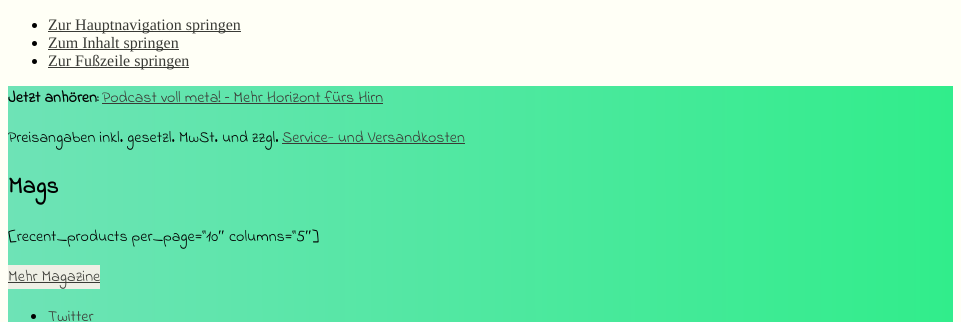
import math
import cairo

surface = cairo.ImageSurface(cairo.FORMAT_RGB24, 961, 322)
ctx = cairo.Context(surface)
options = cairo.FontOptions()
options.set_hint_metrics(cairo.HINT_METRICS_OFF)
options.set_hint_style(cairo.HINT_STYLE_NONE)
ctx.set_font_options(options)
ctx.set_miter_limit(4)


def set_color(code):
    ctx.set_source_rgb(*(v / 255 for v in bytes.fromhex(code[-6:])))


def draw_text(x, y, s, family, size, color, bold=False, italic=False):
    ctx.select_font_face(family, cairo.FONT_SLANT_ITALIC if italic else cairo.FONT_SLANT_NORMAL, cairo.FONT_WEIGHT_BOLD if bold else cairo.FONT_WEIGHT_NORMAL)
    ctx.set_font_size(size)
    set_color(color)
    ctx.move_to(x, y)
    ctx.show_text(s)


def fill_rect(x, y, w, h, color):
    set_color(color)
    ctx.rectangle(x, y, w, h)
    ctx.fill()


set_color("#fffff6")
ctx.paint()
set_color("#000000")
ctx.arc(34.5, 25.5, 2.5, 0, 2 * math.pi)
ctx.fill()
fill_rect(48, 31, 193, 1, "#3a3b36")
draw_text(48, 30, "Zur Hauptnavigation springen", "Liberation Serif", 16, "#3a3b36")
set_color("#000000")
ctx.new_path()
ctx.arc(34.5, 43.5, 2.5, 0, 2 * math.pi)
ctx.fill()
fill_rect(48, 49, 131, 1, "#3a3b36")
draw_text(48, 48, "Zum Inhalt springen", "Liberation Serif", 16, "#3a3b36")
set_color("#000000")
ctx.new_path()
ctx.arc(34.5, 61.5, 2.5, 0, 2 * math.pi)
ctx.fill()
fill_rect(48, 67, 141, 1, "#3a3b36")
draw_text(48, 66, "Zur Fußzeile springen", "Liberation Serif", 16, "#3a3b36")
gradient = cairo.LinearGradient(8, 232, 953, 231)
gradient.add_color_stop_rgba(0, 0.431, 0.89, 0.714, 1)
gradient.add_color_stop_rgba(1, 0.192, 0.929, 0.545, 1)
ctx.set_source(gradient)
ctx.rectangle(8, 86, 945, 236)
ctx.fill()
draw_text(8, 102, "Jetzt anhören:", "Indie Flower", 16, "#000000", bold=True)
draw_text(102, 102, "Podcast voll meta! – Mehr Horizont fürs Hirn", "Indie Flower", 16, "#3a3b36")
fill_rect(102, 103, 281, 1, "#3a3b36")
draw_text(8, 142, "Preisangaben inkl. gesetzl. MwSt. und zzgl.", "Indie Flower", 16, "#000000")
draw_text(282, 142, "Service- und Versandkosten", "Indie Flower", 16, "#3a3b36")
fill_rect(282, 143, 183, 1, "#3a3b36")
draw_text(8, 193, "Mags", "Indie Flower", 24, "#000000", bold=True)
draw_text(8, 241, "[recent_products per_page=“10", "Indie Flower", 16, "#000000")
draw_text(218, 241, "″", "Liberation Serif", 16, "#000000")
draw_text(229, 241, "columns=“5", "Indie Flower", 16, "#000000")
draw_text(305, 241, "″", "Liberation Serif", 16, "#000000")
draw_text(312, 241, "]", "Indie Flower", 16, "#000000")
fill_rect(8, 265, 92, 24, "#eeefe5")
fill_rect(8, 282, 92, 1, "#3a3b36")
draw_text(8, 281, "Mehr Magazine", "Indie Flower", 16, "#3a3b36")
set_color("#000000")
ctx.new_path()
ctx.arc(33.5, 316.5, 2.5, 0, 2 * math.pi)
ctx.fill()
draw_text(48, 321, "Twitter", "Indie Flower", 16, "#3a3b36")
surface.write_to_png("output.png")
